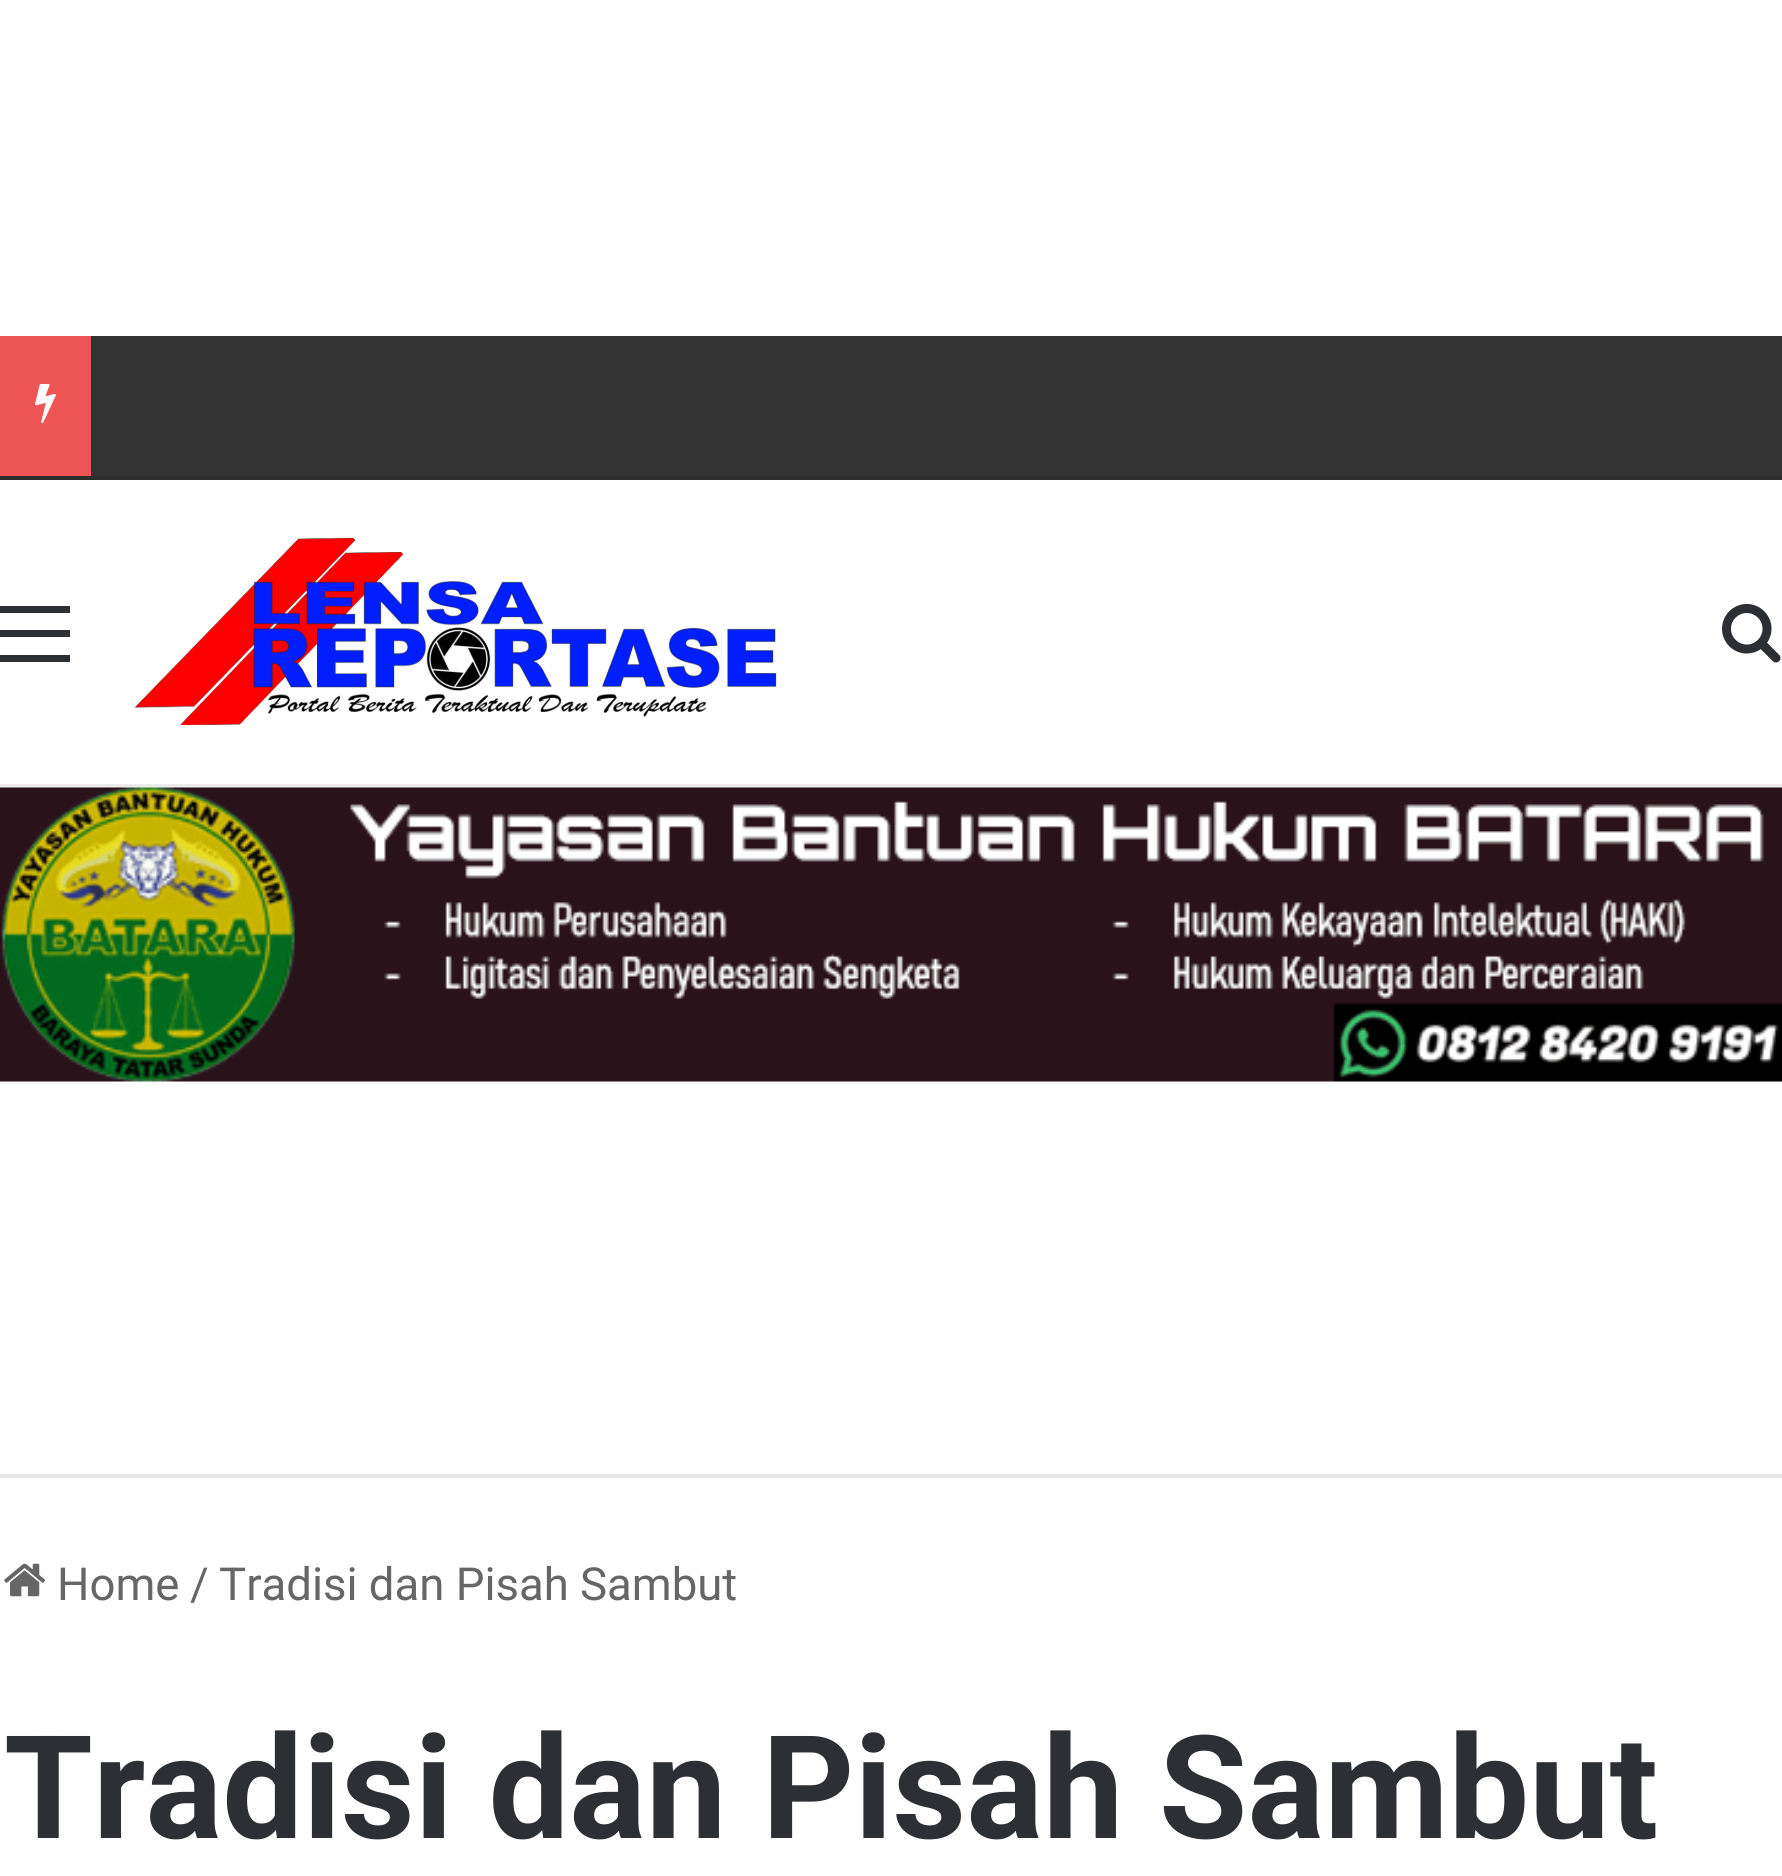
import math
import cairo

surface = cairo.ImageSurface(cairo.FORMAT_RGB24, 1782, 1876)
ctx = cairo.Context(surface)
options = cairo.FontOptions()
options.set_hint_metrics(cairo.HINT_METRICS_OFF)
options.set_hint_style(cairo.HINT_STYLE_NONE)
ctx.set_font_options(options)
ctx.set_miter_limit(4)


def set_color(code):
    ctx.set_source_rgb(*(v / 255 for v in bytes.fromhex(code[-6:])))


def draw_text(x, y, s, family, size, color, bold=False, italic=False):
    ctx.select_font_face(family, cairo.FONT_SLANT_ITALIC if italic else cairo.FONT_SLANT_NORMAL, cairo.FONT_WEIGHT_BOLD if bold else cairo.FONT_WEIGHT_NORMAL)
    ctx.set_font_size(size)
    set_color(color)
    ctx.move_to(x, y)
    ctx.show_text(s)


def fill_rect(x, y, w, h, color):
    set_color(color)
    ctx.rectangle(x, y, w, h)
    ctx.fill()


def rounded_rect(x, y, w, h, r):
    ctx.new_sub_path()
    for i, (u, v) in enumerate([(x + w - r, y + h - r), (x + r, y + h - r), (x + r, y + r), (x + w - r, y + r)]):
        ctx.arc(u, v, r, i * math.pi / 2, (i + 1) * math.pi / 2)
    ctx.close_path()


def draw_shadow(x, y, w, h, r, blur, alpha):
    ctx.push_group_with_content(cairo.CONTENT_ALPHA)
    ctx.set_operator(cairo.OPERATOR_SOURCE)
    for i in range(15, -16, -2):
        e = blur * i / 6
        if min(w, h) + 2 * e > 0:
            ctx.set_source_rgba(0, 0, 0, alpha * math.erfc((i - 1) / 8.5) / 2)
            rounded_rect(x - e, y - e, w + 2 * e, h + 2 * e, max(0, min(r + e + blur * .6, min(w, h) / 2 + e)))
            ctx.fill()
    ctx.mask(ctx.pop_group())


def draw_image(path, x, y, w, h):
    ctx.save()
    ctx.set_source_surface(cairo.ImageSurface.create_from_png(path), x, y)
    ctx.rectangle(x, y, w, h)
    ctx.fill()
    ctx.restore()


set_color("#ffffff")
ctx.paint()
ctx.save()
ctx.rectangle(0, 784, 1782, 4)
ctx.clip()
set_color("#000000")
draw_shadow(-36, 490, 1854, 305, 0, 12, 0.1)
ctx.restore()
fill_rect(91, 336, 1691, 140, "#333333")
fill_rect(0, 476, 1782, 4, "#2e2e2e")
fill_rect(0, 336, 91, 140, "#f05555")
draw_image("assets/img1.png", 35, 384, 21, 39)
fill_rect(0, 630, 70, 7, "#2c2f34")
fill_rect(0, 606, 70, 7, "#2c2f34")
fill_rect(0, 655, 70, 7, "#2c2f34")
draw_image("assets/img2.png", 134, 537, 643, 188)
draw_image("assets/img3.png", 1722, 604, 59, 59)
draw_image("assets/img4.png", 0, 787, 1782, 295)
ctx.rectangle(-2, 1476, 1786, 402)
set_color("#e6e6e6")
ctx.set_line_width(4)
ctx.stroke()
draw_image("assets/img5.png", 4, 1563, 41, 34)
draw_text(57, 1600, "Home", "Roboto", 45.5, "#666666")
draw_text(190, 1600, "/", "Roboto", 45.5, "#666666")
draw_text(219, 1600, "Tradisi dan Pisah Sambut", "Roboto", 45.5, "#666666")
draw_text(4, 1838, "Tradisi dan Pisah Sambut", "Roboto", 143.5, "#2c2f34", bold=True)
surface.write_to_png("output.png")
